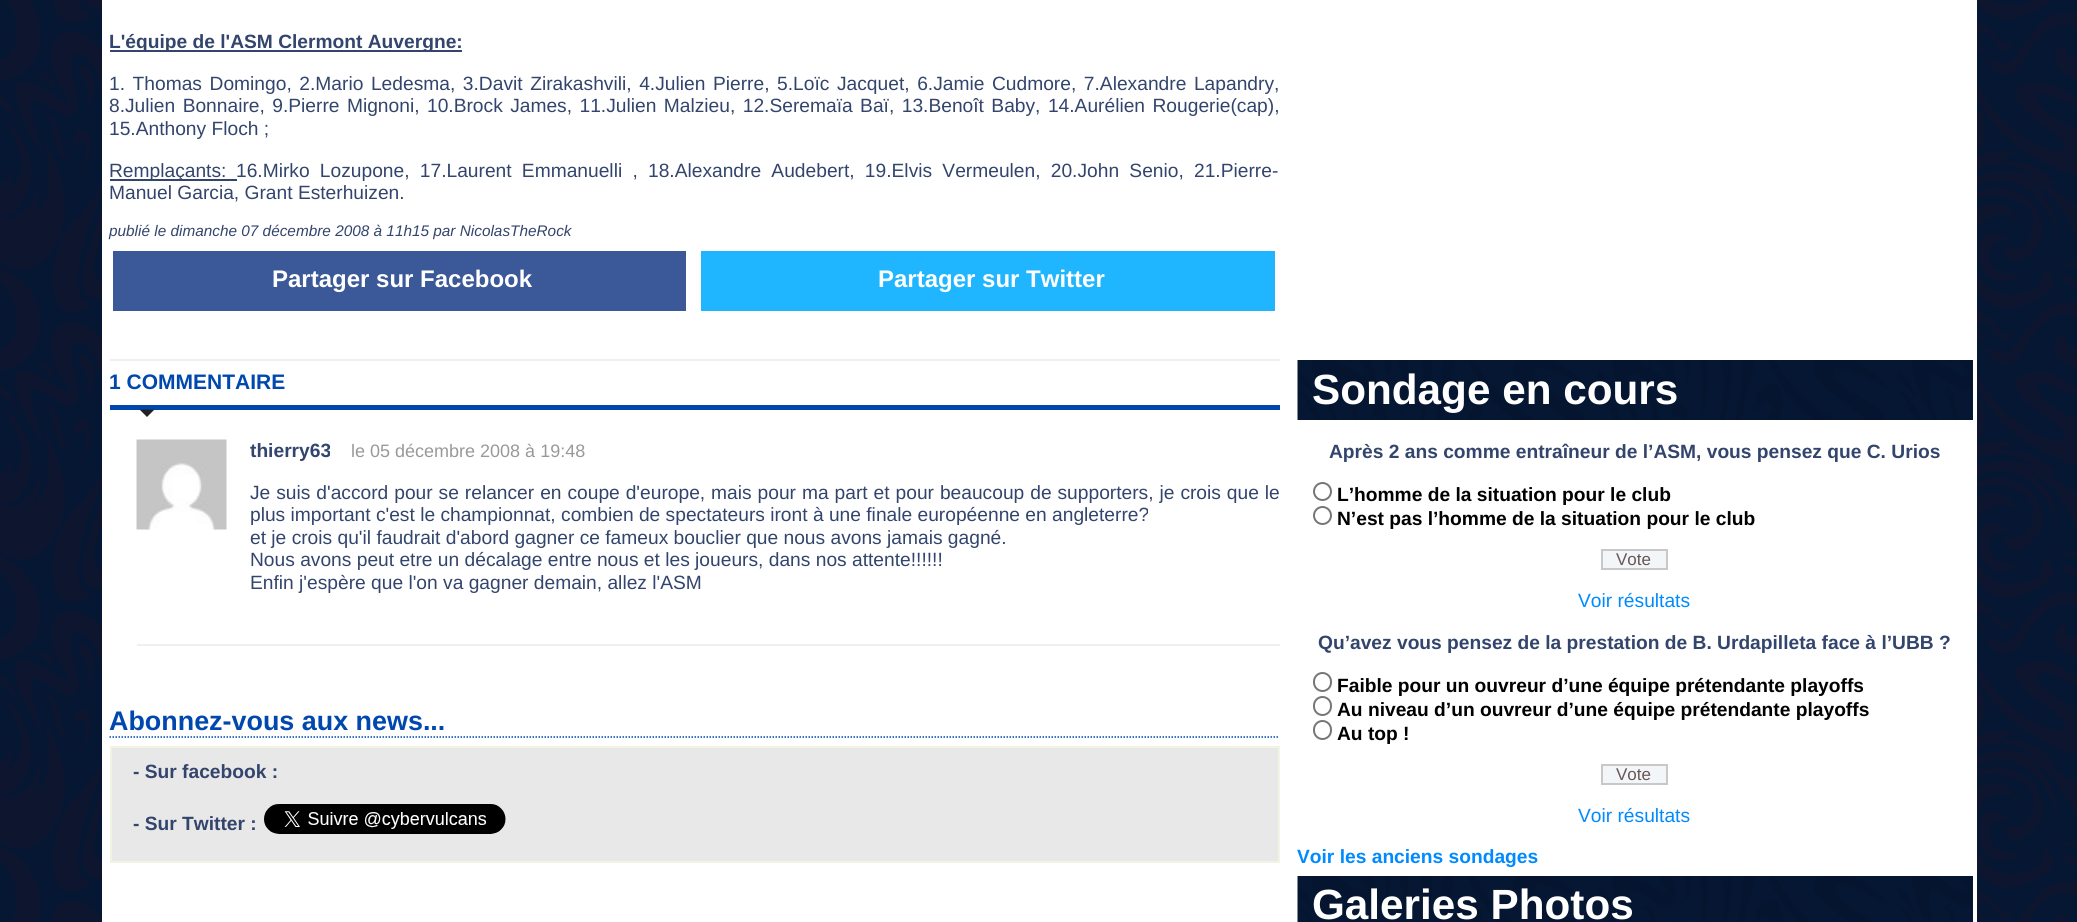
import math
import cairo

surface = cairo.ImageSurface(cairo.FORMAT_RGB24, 2077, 922)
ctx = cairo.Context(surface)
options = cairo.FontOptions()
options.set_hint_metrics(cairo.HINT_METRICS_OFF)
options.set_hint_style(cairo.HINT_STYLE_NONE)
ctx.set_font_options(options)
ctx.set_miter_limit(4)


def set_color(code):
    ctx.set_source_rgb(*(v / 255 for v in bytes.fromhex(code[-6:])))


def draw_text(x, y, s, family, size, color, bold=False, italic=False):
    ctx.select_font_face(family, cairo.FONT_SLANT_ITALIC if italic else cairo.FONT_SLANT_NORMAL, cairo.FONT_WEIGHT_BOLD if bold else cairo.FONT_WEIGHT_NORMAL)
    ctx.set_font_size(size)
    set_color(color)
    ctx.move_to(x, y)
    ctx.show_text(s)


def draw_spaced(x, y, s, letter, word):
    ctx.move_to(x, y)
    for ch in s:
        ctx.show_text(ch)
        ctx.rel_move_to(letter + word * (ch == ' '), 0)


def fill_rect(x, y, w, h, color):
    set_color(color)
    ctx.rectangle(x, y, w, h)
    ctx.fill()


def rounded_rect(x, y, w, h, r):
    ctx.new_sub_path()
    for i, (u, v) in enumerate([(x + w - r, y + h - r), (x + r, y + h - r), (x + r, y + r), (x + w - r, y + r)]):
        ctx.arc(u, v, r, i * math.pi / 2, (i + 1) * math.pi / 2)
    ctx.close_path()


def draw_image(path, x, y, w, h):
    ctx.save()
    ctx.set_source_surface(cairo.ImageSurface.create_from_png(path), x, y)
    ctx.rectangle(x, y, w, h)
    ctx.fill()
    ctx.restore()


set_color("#051733")
ctx.paint()
draw_image("assets/img1.png", 0, 0, 2077, 922)
fill_rect(102, 0, 1875, 922, "#ffffff")
fill_rect(110, 50, 352, 2, "#33456d")
draw_text(109, 48, "L'équipe de l'ASM Clermont Auvergne:", "Liberation Sans", 19.2, "#33456d", bold=True)
ctx.select_font_face("Liberation Sans")
draw_spaced(109, 90, "1. Thomas Domingo, 2.Mario Ledesma, 3.Davit Zirakashvili, 4.Julien Pierre, 5.Loïc Jacquet, 6.Jamie Cudmore, 7.Alexandre Lapandry,", 0, 2.25)
draw_spaced(109, 112, "8.Julien Bonnaire, 9.Pierre Mignoni, 10.Brock James, 11.Julien Malzieu, 12.Seremaïa Baï, 13.Benoît Baby, 14.Aurélien Rougerie(cap),", 0, 2.1)
draw_text(109, 135, "15.Anthony Floch ;", "Liberation Sans", 19.2, "#33456d")
fill_rect(110, 179, 127, 2, "#33456d")
draw_text(109, 177, "Remplaçants:", "Liberation Sans", 19.2, "#33456d")
draw_spaced(236, 177, "16.Mirko Lozupone, 17.Laurent Emmanuelli , 18.Alexandre Audebert, 19.Elvis Vermeulen, 20.John Senio, 21.Pierre-", 0, 4.9)
draw_text(109, 199, "Manuel Garcia, Grant Esterhuizen.", "Liberation Sans", 19.2, "#33456d")
draw_text(109, 236, "publié le dimanche 07 décembre 2008 à 11h15 par NicolasTheRock", "Liberation Sans", 15.35, "#33456d", italic=True)
fill_rect(113, 251, 573, 60, "#3b5998")
draw_text(272, 287, "Partager sur Facebook", "Liberation Sans", 24, "#ffffff", bold=True)
fill_rect(701, 251, 574, 60, "#20b6ff")
draw_text(878, 287, "Partager sur Twitter", "Liberation Sans", 24, "#ffffff", bold=True)
fill_rect(110, 359, 1170, 2, "#f0f0f0")
fill_rect(110, 405, 1170, 5, "#0048ae")
draw_text(109, 389, "1 COMMENTAIRE", "Liberation Sans", 21, "#0048ae", bold=True)
set_color("#222222")
ctx.new_path()
ctx.move_to(139.5, 409.5)
ctx.line_to(154.5, 409.5)
ctx.line_to(147, 417)
ctx.close_path()
ctx.fill()
fill_rect(137, 644, 1143, 2, "#f0f0f0")
draw_image("assets/img2.png", 136, 439, 91, 91)
draw_text(250, 457, "thierry63", "Liberation Sans", 19.2, "#33456d", bold=True)
draw_text(351, 457, "le 05 décembre 2008 à 19:48", "Liberation Sans", 18, "#999999")
ctx.set_font_size(19.2)
set_color("#33456d")
draw_spaced(250, 499, "Je suis d'accord pour se relancer en coupe d'europe, mais pour ma part et pour beaucoup de supporters, je crois que le", 0, 0.6)
draw_text(250, 521, "plus important c'est le championnat, combien de spectateurs iront à une finale européenne en angleterre?", "Liberation Sans", 19.2, "#33456d")
draw_text(250, 544, "et je crois qu'il faudrait d'abord gagner ce fameux bouclier que nous avons jamais gagné.", "Liberation Sans", 19.2, "#33456d")
draw_text(250, 566, "Nous avons peut etre un décalage entre nous et les joueurs, dans nos attente!!!!!!", "Liberation Sans", 19.2, "#33456d")
draw_text(250, 589, "Enfin j'espère que l'on va gagner demain, allez l'ASM", "Liberation Sans", 19.2, "#33456d")
ctx.new_path()
ctx.move_to(109.5, 737)
ctx.line_to(1279.5, 737)
set_color("#0048ae")
ctx.set_line_width(1.5)
ctx.set_dash([1.5, 1.5])
ctx.stroke()
draw_text(109, 730, "Abonnez-vous aux news...", "Liberation Sans", 26.9, "#0048ae", bold=True)
set_color("#e8e8e8")
ctx.rectangle(111, 747, 1168, 115)
ctx.fill_preserve()
set_color("#f1f3e3")
ctx.set_line_width(2)
ctx.set_dash([])
ctx.stroke()
draw_text(133, 778, "- Sur facebook :", "Liberation Sans", 19.2, "#33456d", bold=True)
draw_text(133, 830, "- Sur Twitter :", "Liberation Sans", 19.2, "#33456d", bold=True)
draw_image("assets/img3.png", 264, 804, 242, 30)
fill_rect(1972, 360, 1, 60, "#051733")
draw_image("assets/img4.png", 1297, 360, 675, 60)
draw_text(1312, 404, "Sondage en cours", "Liberation Sans", 42.25, "#ffffff", bold=True)
draw_text(1329, 458, "Après 2 ans comme entraîneur de l’ASM, vous pensez que C. Urios", "Liberation Sans", 19.2, "#33456d", bold=True)
ctx.new_path()
ctx.arc(1322.5, 491.5, 8.5, 0, 2 * math.pi)
set_color("#767676")
ctx.stroke()
draw_text(1337, 501, "L’homme de la situation pour le club", "Liberation Sans", 19.2, "#000000", bold=True)
ctx.new_path()
ctx.arc(1322.5, 515.5, 8.5, 0, 2 * math.pi)
set_color("#767676")
ctx.stroke()
draw_text(1337, 525, "N’est pas l’homme de la situation pour le club", "Liberation Sans", 19.2, "#000000", bold=True)
set_color("#f3f6f8")
ctx.rectangle(1602, 550, 65, 19)
ctx.fill_preserve()
set_color("#c8c8c8")
ctx.stroke()
draw_text(1616, 565, "Vote", "Liberation Sans", 17, "#6a5555")
draw_text(1578, 607, "Voir résultats", "Liberation Sans", 19.2, "#008aff")
draw_text(1318, 649, "Qu’avez vous pensez de la prestation de B. Urdapilleta face à l’UBB ?", "Liberation Sans", 19.2, "#33456d", bold=True)
rounded_rect(1314, 673, 17, 18, 8.5)
set_color("#767676")
ctx.stroke()
draw_text(1337, 692, "Faible pour un ouvreur d’une équipe prétendante playoffs", "Liberation Sans", 19.2, "#000000", bold=True)
rounded_rect(1314, 697, 17, 18, 8.5)
set_color("#767676")
ctx.stroke()
draw_text(1337, 716, "Au niveau d’un ouvreur d’une équipe prétendante playoffs", "Liberation Sans", 19.2, "#000000", bold=True)
rounded_rect(1314, 721, 17, 18, 8.5)
set_color("#767676")
ctx.stroke()
draw_text(1337, 740, "Au top !", "Liberation Sans", 19.2, "#000000", bold=True)
set_color("#f3f6f8")
ctx.rectangle(1602, 765, 65, 19)
ctx.fill_preserve()
set_color("#c8c8c8")
ctx.stroke()
draw_text(1616, 780, "Vote", "Liberation Sans", 17, "#6a5555")
draw_text(1578, 822, "Voir résultats", "Liberation Sans", 19.2, "#008aff")
draw_text(1297, 863, "Voir les anciens sondages", "Liberation Sans", 19.2, "#008aff", bold=True)
fill_rect(1972, 876, 1, 46, "#051733")
draw_image("assets/img5.png", 1297, 876, 675, 46)
draw_text(1312, 919, "Galeries Photos", "Liberation Sans", 42.25, "#ffffff", bold=True)
surface.write_to_png("output.png")
